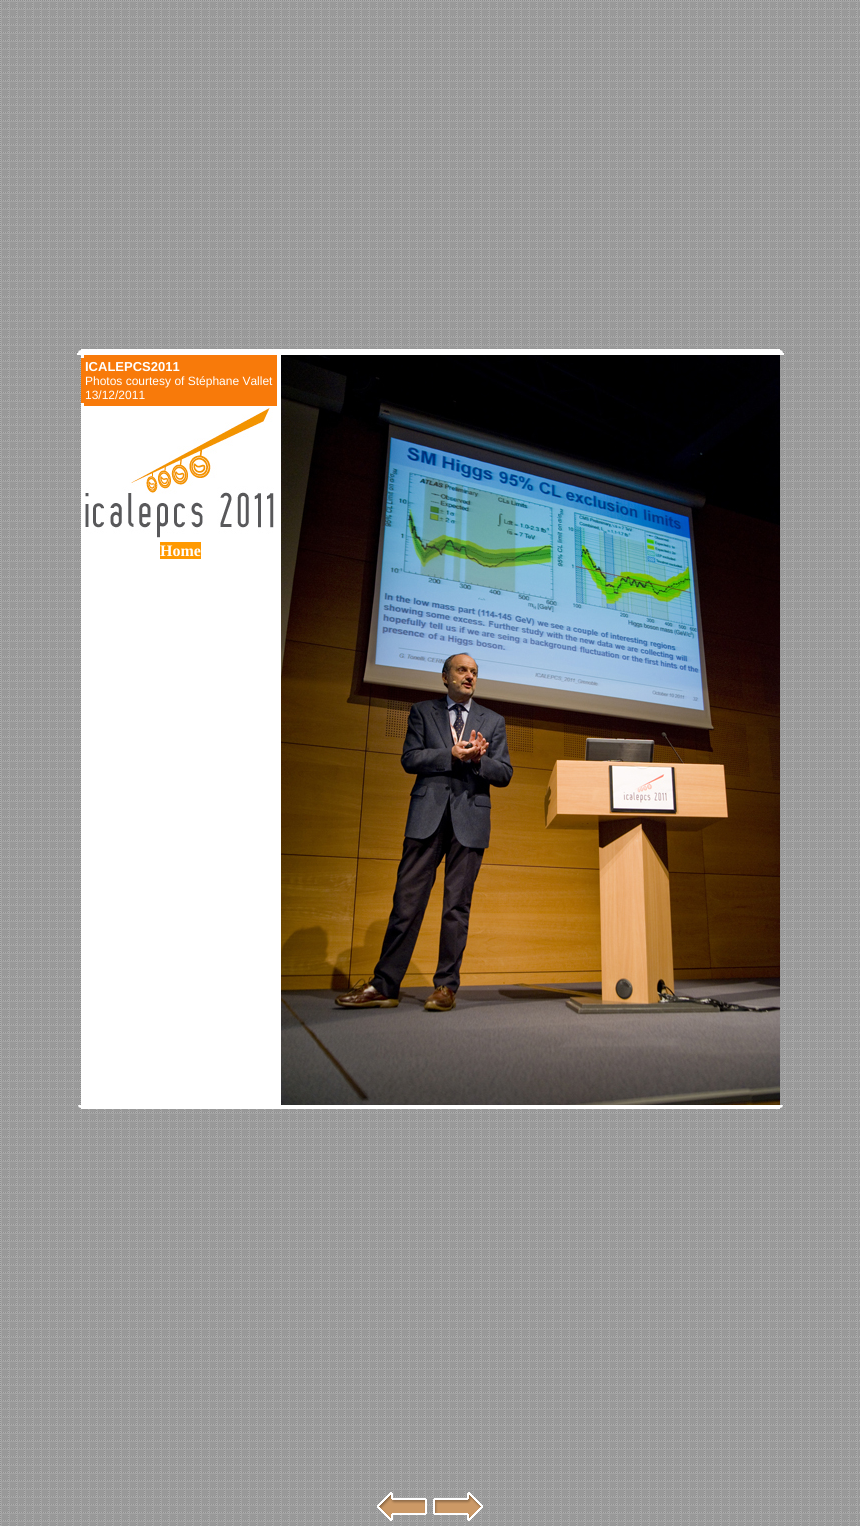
import math
import cairo

surface = cairo.ImageSurface(cairo.FORMAT_RGB24, 860, 1526)
ctx = cairo.Context(surface)
options = cairo.FontOptions()
options.set_hint_metrics(cairo.HINT_METRICS_OFF)
options.set_hint_style(cairo.HINT_STYLE_NONE)
ctx.set_font_options(options)
ctx.set_miter_limit(4)


def set_color(code):
    ctx.set_source_rgb(*(v / 255 for v in bytes.fromhex(code[-6:])))


def draw_text(x, y, s, family, size, color, bold=False, italic=False):
    ctx.select_font_face(family, cairo.FONT_SLANT_ITALIC if italic else cairo.FONT_SLANT_NORMAL, cairo.FONT_WEIGHT_BOLD if bold else cairo.FONT_WEIGHT_NORMAL)
    ctx.set_font_size(size)
    set_color(color)
    ctx.move_to(x, y)
    ctx.show_text(s)


def fill_rect(x, y, w, h, color):
    set_color(color)
    ctx.rectangle(x, y, w, h)
    ctx.fill()


def draw_image(path, x, y, w, h):
    ctx.save()
    ctx.set_source_surface(cairo.ImageSurface.create_from_png(path), x, y)
    ctx.rectangle(x, y, w, h)
    ctx.fill()
    ctx.restore()


set_color("#ffffff")
ctx.paint()
draw_image("assets/img1.png", 0, 0, 860, 1526)
draw_image("assets/img2.png", 77, 349, 4, 4)
fill_rect(81, 349, 699, 4, "#ffffff")
draw_image("assets/img3.png", 780, 350, 4, 3)
fill_rect(77, 353, 707, 2, "#ffffff")
fill_rect(81, 355, 200, 750, "#ffffff")
fill_rect(81, 355, 196, 4, "#f87a0a")
fill_rect(81, 355, 3, 3, "#ffffff")
fill_rect(81, 359, 196, 43, "#f87a0a")
draw_text(85, 371, "ICALEPCS2011", "Liberation Sans", 13, "#ffffff", bold=True)
draw_text(85, 385, "Photos courtesy of Stéphane Vallet", "Liberation Sans", 12, "#ffffff")
draw_text(85, 399, "13/12/2011", "Liberation Sans", 12, "#ffffff")
fill_rect(81, 402, 196, 4, "#f87a0a")
fill_rect(81, 403, 3, 3, "#ffffff")
draw_image("assets/img4.png", 85, 407, 189, 131)
fill_rect(160, 542, 41, 17, "#ff9900")
draw_text(160, 556, "Home", "Liberation Serif", 16, "#ffffff", bold=True)
draw_image("assets/img5.png", 281, 355, 499, 750)
draw_image("assets/img6.png", 77, 1105, 4, 4)
fill_rect(81, 1105, 699, 4, "#ffffff")
draw_image("assets/img7.png", 780, 1105, 4, 3)
draw_image("assets/img8.png", 377, 1492, 50, 29)
draw_image("assets/img9.png", 433, 1492, 50, 29)
surface.write_to_png("output.png")
